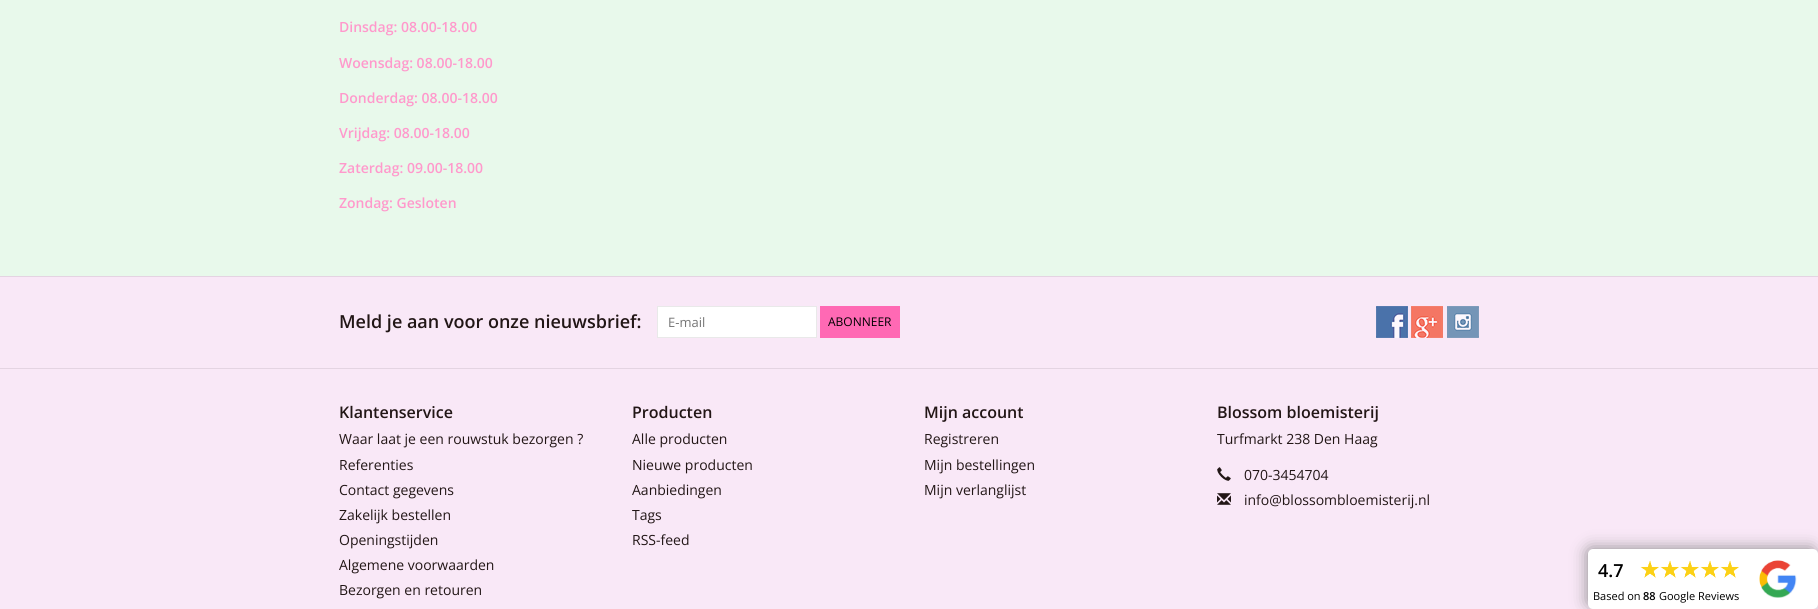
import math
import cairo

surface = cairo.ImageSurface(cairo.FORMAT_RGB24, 1818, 609)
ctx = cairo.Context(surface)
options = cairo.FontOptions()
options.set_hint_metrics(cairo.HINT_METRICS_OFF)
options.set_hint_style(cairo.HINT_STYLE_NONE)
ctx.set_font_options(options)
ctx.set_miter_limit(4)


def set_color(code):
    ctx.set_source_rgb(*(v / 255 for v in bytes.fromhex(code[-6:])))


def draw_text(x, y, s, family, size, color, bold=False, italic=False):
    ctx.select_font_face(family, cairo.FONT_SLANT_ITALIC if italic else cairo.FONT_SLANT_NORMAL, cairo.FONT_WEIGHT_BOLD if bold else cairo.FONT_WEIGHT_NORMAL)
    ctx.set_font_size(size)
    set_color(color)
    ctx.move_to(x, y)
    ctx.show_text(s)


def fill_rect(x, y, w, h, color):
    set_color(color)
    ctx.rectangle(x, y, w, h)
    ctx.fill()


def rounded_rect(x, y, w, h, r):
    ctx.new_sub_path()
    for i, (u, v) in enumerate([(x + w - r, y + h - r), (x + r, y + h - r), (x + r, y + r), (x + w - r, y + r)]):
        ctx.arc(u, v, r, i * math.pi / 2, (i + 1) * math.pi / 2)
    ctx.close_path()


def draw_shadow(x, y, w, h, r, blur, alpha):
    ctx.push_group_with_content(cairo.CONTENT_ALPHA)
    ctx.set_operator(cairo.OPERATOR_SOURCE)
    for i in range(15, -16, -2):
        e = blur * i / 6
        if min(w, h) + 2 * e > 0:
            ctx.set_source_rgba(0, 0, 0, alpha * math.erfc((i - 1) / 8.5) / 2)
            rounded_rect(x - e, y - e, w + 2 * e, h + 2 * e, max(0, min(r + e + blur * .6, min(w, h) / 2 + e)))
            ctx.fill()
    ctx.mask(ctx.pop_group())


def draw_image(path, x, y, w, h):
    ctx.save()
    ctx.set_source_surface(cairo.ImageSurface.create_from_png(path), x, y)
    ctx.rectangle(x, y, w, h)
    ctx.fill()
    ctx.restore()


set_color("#e8f9eb")
ctx.paint()
draw_text(339, 32, "Dinsdag: 08.00-18.00", "Open Sans SemiBold", 14, "#ff99cc")
draw_text(339, 68, "Woensdag: 08.00-18.00", "Open Sans SemiBold", 14, "#ff99cc")
draw_text(339, 103, "Donderdag: 08.00-18.00", "Open Sans SemiBold", 14, "#ff99cc")
draw_text(339, 138, "Vrijdag: 08.00-18.00", "Open Sans SemiBold", 14, "#ff99cc")
draw_text(339, 173, "Zaterdag: 09.00-18.00", "Open Sans SemiBold", 14, "#ff99cc")
draw_text(339, 208, "Zondag: Gesloten", "Open Sans SemiBold", 14, "#ff99cc")
fill_rect(0, 277, 1818, 332, "#f9e8f7")
fill_rect(0, 276, 1818, 1, "#e4d4e2")
draw_text(339, 328, "Meld je aan voor onze nieuwsbrief:", "Open Sans SemiBold", 18, "#221616")
set_color("#ffffff")
ctx.rectangle(657.5, 306.5, 159, 31)
ctx.fill_preserve()
set_color("#e9e9e9")
ctx.set_line_width(1)
ctx.stroke()
draw_text(668, 327, "E-mail", "Open Sans", 13, "#757575")
fill_rect(820, 306, 80, 32, "#ff69b4")
draw_text(828, 326, "ABONNEER", "Open Sans", 12, "#000000")
draw_image("assets/img1.png", 1376, 306, 32, 32)
draw_image("assets/img2.png", 1411, 306, 32, 32)
draw_image("assets/img3.png", 1447, 306, 32, 32)
fill_rect(0, 368, 1818, 1, "#e4d4e2")
draw_text(339, 418, "Klantenservice", "Open Sans SemiBold", 16, "#221616")
draw_text(339, 444, "Waar laat je een rouwstuk bezorgen ?", "Open Sans", 14, "#221616")
draw_text(339, 470, "Referenties", "Open Sans", 14, "#221616")
draw_text(339, 495, "Contact gegevens", "Open Sans", 14, "#221616")
draw_text(339, 520, "Zakelijk bestellen", "Open Sans", 14, "#221616")
draw_text(339, 545, "Openingstijden", "Open Sans", 14, "#221616")
draw_text(339, 570, "Algemene voorwaarden", "Open Sans", 14, "#221616")
draw_text(339, 595, "Bezorgen en retouren", "Open Sans", 14, "#221616")
draw_text(632, 418, "Producten", "Open Sans SemiBold", 16, "#221616")
draw_text(632, 444, "Alle producten", "Open Sans", 14, "#221616")
draw_text(632, 470, "Nieuwe producten", "Open Sans", 14, "#221616")
draw_text(632, 495, "Aanbiedingen", "Open Sans", 14, "#221616")
draw_text(632, 520, "Tags", "Open Sans", 14, "#221616")
draw_text(632, 545, "RSS-feed", "Open Sans", 14, "#221616")
draw_text(924, 418, "Mijn account", "Open Sans SemiBold", 16, "#221616")
draw_text(924, 444, "Registreren", "Open Sans", 14, "#221616")
draw_text(924, 470, "Mijn bestellingen", "Open Sans", 14, "#221616")
draw_text(924, 495, "Mijn verlanglijst", "Open Sans", 14, "#221616")
draw_text(1217, 418, "Blossom bloemisterij", "Open Sans SemiBold", 16, "#221616")
draw_text(1217, 444, "Turfmarkt 238 Den Haag", "Open Sans", 14, "#221616")
draw_image("assets/img4.png", 1217, 467, 14, 14)
draw_text(1244, 480, "070-3454704", "Open Sans", 14, "#221616")
draw_image("assets/img5.png", 1217, 493, 14, 12)
draw_text(1244, 505, "info@blossombloemisterij.nl", "Open Sans", 14, "#221616")
set_color("#888888")
draw_shadow(1588, 549, 226, 56, 3, 8, 1)
set_color("#ffffff")
rounded_rect(1588, 549, 230, 60, 5)
ctx.fill()
draw_text(1598, 577, "4.7", "Open Sans SemiBold", 18, "#000000")
draw_image("assets/img6.png", 1640, 560, 19, 18)
draw_image("assets/img6.png", 1660, 560, 19, 18)
draw_image("assets/img6.png", 1680, 560, 19, 18)
draw_image("assets/img6.png", 1700, 560, 19, 18)
draw_image("assets/img6.png", 1720, 560, 19, 18)
draw_text(1593, 600, "Based on", "Open Sans", 11, "#000000")
draw_text(1643, 600, "88", "Open Sans SemiBold", 11, "#000000")
draw_text(1659, 600, "Google Reviews", "Open Sans", 11, "#000000")
draw_image("assets/img7.png", 1759, 560, 38, 38)
surface.write_to_png("output.png")
